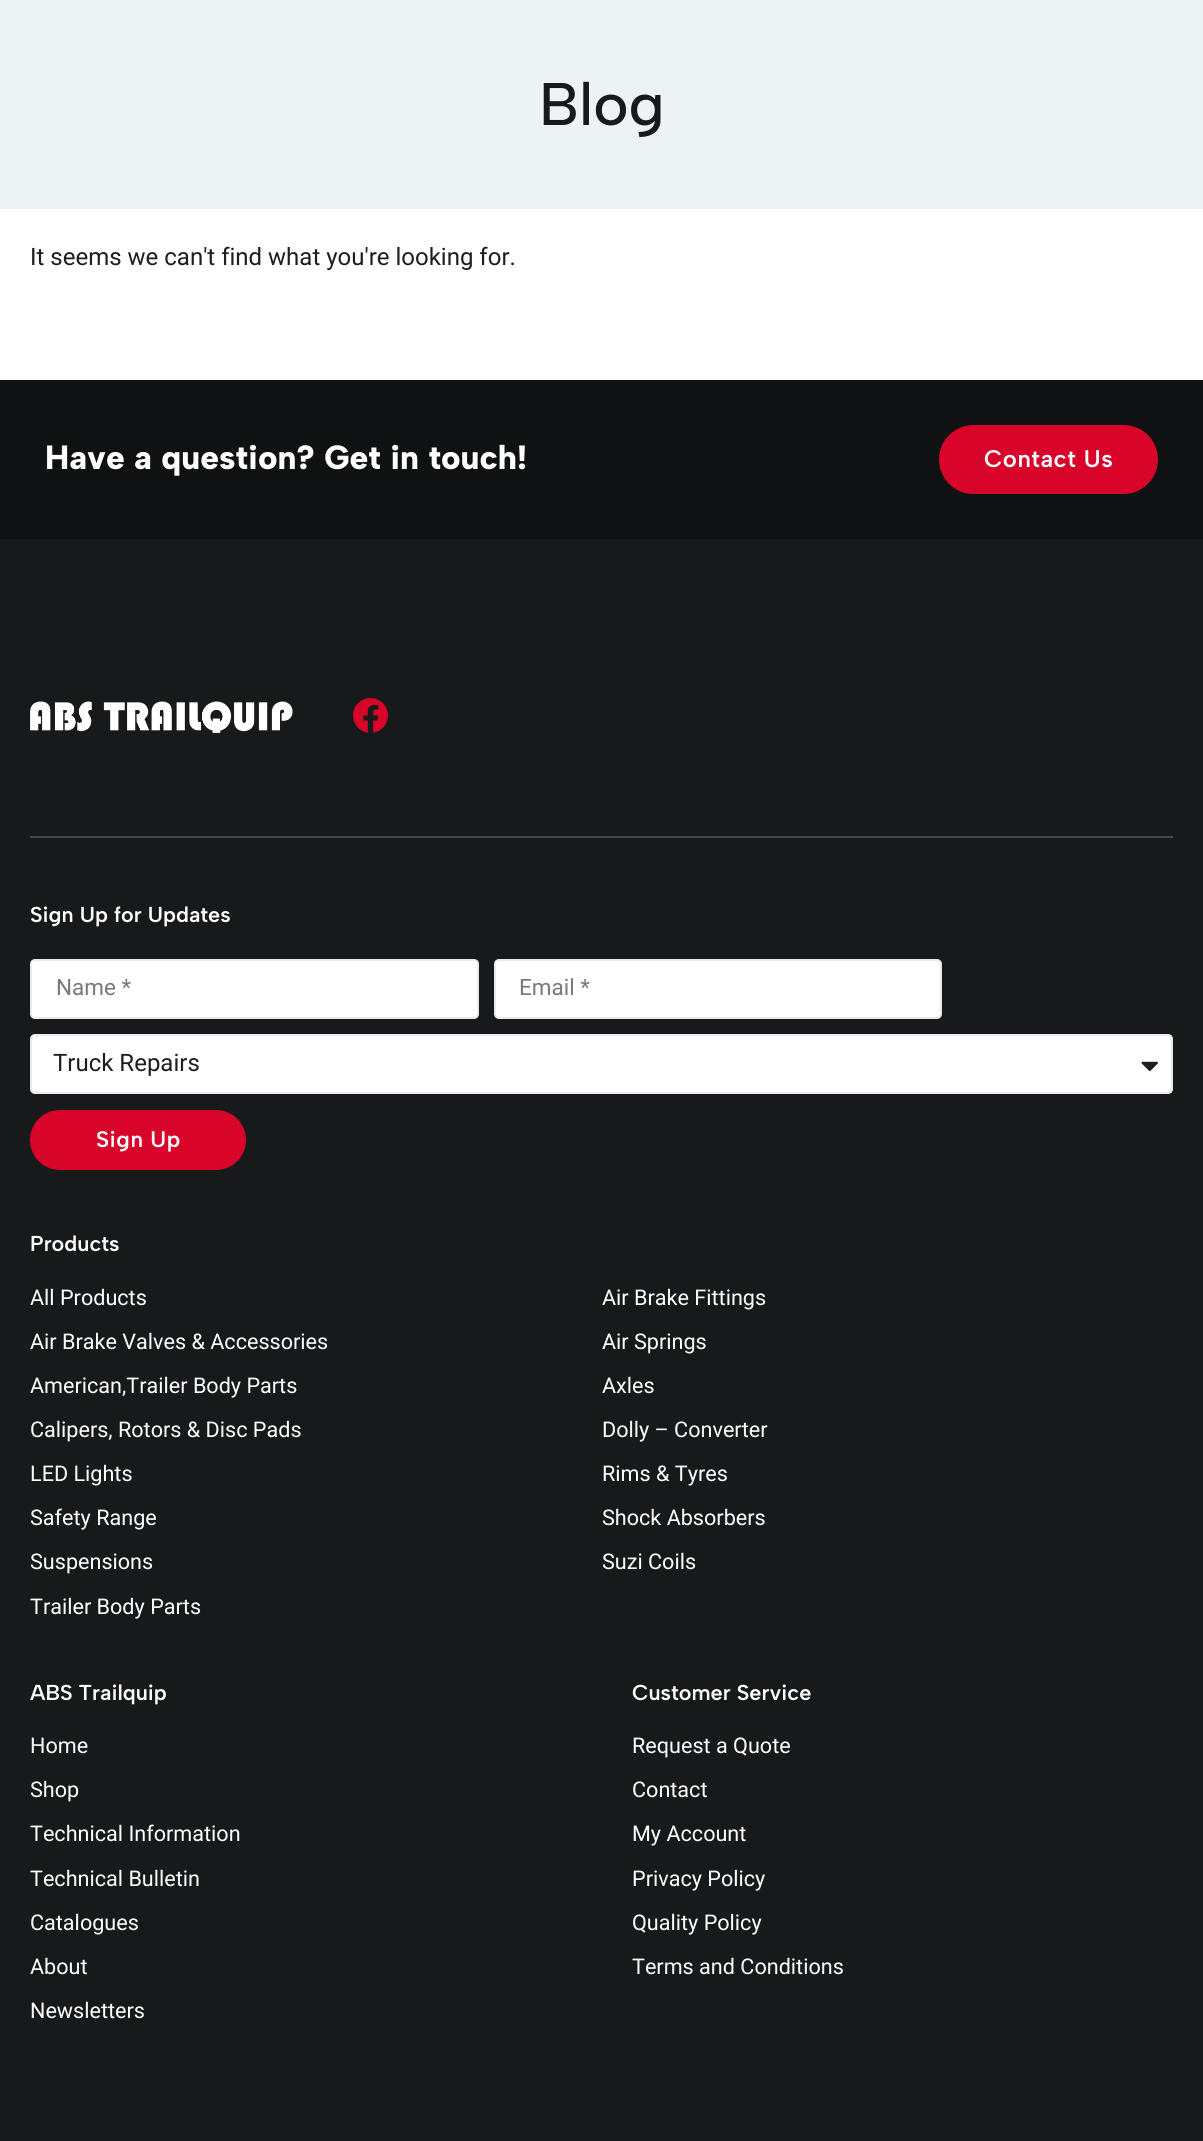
import math
import cairo

surface = cairo.ImageSurface(cairo.FORMAT_RGB24, 1203, 2141)
ctx = cairo.Context(surface)
options = cairo.FontOptions()
options.set_hint_metrics(cairo.HINT_METRICS_OFF)
options.set_hint_style(cairo.HINT_STYLE_NONE)
ctx.set_font_options(options)
ctx.set_miter_limit(4)


def set_color(code):
    ctx.set_source_rgb(*(v / 255 for v in bytes.fromhex(code[-6:])))


def draw_text(x, y, s, family, size, color, bold=False, italic=False):
    ctx.select_font_face(family, cairo.FONT_SLANT_ITALIC if italic else cairo.FONT_SLANT_NORMAL, cairo.FONT_WEIGHT_BOLD if bold else cairo.FONT_WEIGHT_NORMAL)
    ctx.set_font_size(size)
    set_color(color)
    ctx.move_to(x, y)
    ctx.show_text(s)


def draw_spaced(x, y, s, letter, word):
    ctx.move_to(x, y)
    for ch in s:
        ctx.show_text(ch)
        ctx.rel_move_to(letter + word * (ch == ' '), 0)


def fill_rect(x, y, w, h, color):
    set_color(color)
    ctx.rectangle(x, y, w, h)
    ctx.fill()


def rounded_rect(x, y, w, h, r):
    ctx.new_sub_path()
    for i, (u, v) in enumerate([(x + w - r, y + h - r), (x + r, y + h - r), (x + r, y + r), (x + w - r, y + r)]):
        ctx.arc(u, v, r, i * math.pi / 2, (i + 1) * math.pi / 2)
    ctx.close_path()


def draw_image(path, x, y, w, h):
    ctx.save()
    ctx.set_source_surface(cairo.ImageSurface.create_from_png(path), x, y)
    ctx.rectangle(x, y, w, h)
    ctx.fill()
    ctx.restore()


set_color("#ffffff")
ctx.paint()
fill_rect(0, 0, 1203, 209, "#edf2f4")
draw_text(539, 125, "Blog", "Albert Sans Medium", 60, "#18191b")
draw_text(30, 265, "It seems we can't find what you're looking for.", "Roboto", 24, "#1c1e21")
fill_rect(0, 539, 1203, 1602, "#18191b")
fill_rect(0, 380, 1203, 159, "#101112")
draw_text(45, 469, "Have a question? Get in touch!", "Albert Sans ExtraBold", 33.6, "#ffffff")
set_color("#d90429")
rounded_rect(939, 425, 219, 69, 34.5)
ctx.fill()
ctx.select_font_face("Albert Sans SemiBold")
ctx.set_font_size(24)
set_color("#ffffff")
draw_spaced(984, 467, "Contact Us", 0.5, 0)
draw_image("assets/img1.png", 30, 701, 263, 32)
draw_image("assets/img2.png", 353, 698, 35, 35)
fill_rect(30, 836, 1143, 2, "#464749")
draw_text(30, 922, "Sign Up for Updates", "Albert Sans SemiBold", 21.6, "#ffffff")
rounded_rect(30, 959, 449, 60, 5)
ctx.fill()
rounded_rect(31, 960, 447, 58, 4)
ctx.set_source_rgba(0.035, 0.094, 0.255, 0.09)
ctx.stroke()
draw_text(56, 995, "Name *", "Roboto", 22.5, "#797a7c")
set_color("#ffffff")
rounded_rect(494, 959, 448, 60, 5)
ctx.fill()
rounded_rect(495, 960, 446, 58, 4)
ctx.set_source_rgba(0.035, 0.094, 0.255, 0.09)
ctx.stroke()
draw_text(519, 995, "Email *", "Roboto", 22.5, "#797a7c")
set_color("#ffffff")
rounded_rect(30, 1034, 1143, 60, 5)
ctx.fill()
rounded_rect(31, 1035, 1141, 58, 4)
ctx.set_source_rgba(0.035, 0.094, 0.255, 0.09)
ctx.stroke()
draw_text(53, 1071, "Truck Repairs", "Roboto", 24, "#1c1e21")
draw_image("assets/img3.png", 1141, 1061, 17, 11)
set_color("#d90429")
rounded_rect(30, 1110, 216, 60, 30)
ctx.fill()
ctx.select_font_face("Albert Sans SemiBold")
ctx.set_font_size(22.5)
set_color("#ffffff")
draw_spaced(96, 1147, "Sign Up", 0.5, 0)
draw_text(30, 1251, "Products", "Albert Sans SemiBold", 21.6, "#ffffff")
draw_text(30, 1305, "All Products", "Roboto", 21.6, "#ffffff")
draw_text(602, 1305, "Air Brake Fittings", "Roboto", 21.6, "#ffffff")
draw_text(30, 1349, "Air Brake Valves & Accessories", "Roboto", 21.6, "#ffffff")
draw_text(602, 1349, "Air Springs", "Roboto", 21.6, "#ffffff")
draw_text(30, 1393, "American,Trailer Body Parts", "Roboto", 21.6, "#ffffff")
draw_text(602, 1393, "Axles", "Roboto", 21.6, "#ffffff")
draw_text(30, 1437, "Calipers, Rotors & Disc Pads", "Roboto", 21.6, "#ffffff")
draw_text(602, 1437, "Dolly – Converter", "Roboto", 21.6, "#ffffff")
draw_text(30, 1481, "LED Lights", "Roboto", 21.6, "#ffffff")
draw_text(602, 1481, "Rims & Tyres", "Roboto", 21.6, "#ffffff")
draw_text(30, 1525, "Safety Range", "Roboto", 21.6, "#ffffff")
draw_text(602, 1525, "Shock Absorbers", "Roboto", 21.6, "#ffffff")
draw_text(30, 1569, "Suspensions", "Roboto", 21.6, "#ffffff")
draw_text(602, 1569, "Suzi Coils", "Roboto", 21.6, "#ffffff")
draw_text(30, 1614, "Trailer Body Parts", "Roboto", 21.6, "#ffffff")
draw_text(30, 1700, "ABS Trailquip", "Albert Sans SemiBold", 21.6, "#ffffff")
draw_text(30, 1753, "Home", "Roboto", 21.6, "#ffffff")
draw_text(30, 1797, "Shop", "Roboto", 21.6, "#ffffff")
draw_text(30, 1841, "Technical Information", "Roboto", 21.6, "#ffffff")
draw_text(30, 1886, "Technical Bulletin", "Roboto", 21.6, "#ffffff")
draw_text(30, 1930, "Catalogues", "Roboto", 21.6, "#ffffff")
draw_text(30, 1974, "About", "Roboto", 21.6, "#ffffff")
draw_text(30, 2018, "Newsletters", "Roboto", 21.6, "#ffffff")
draw_text(632, 1700, "Customer Service", "Albert Sans SemiBold", 21.6, "#ffffff")
draw_text(632, 1753, "Request a Quote", "Roboto", 21.6, "#ffffff")
draw_text(632, 1797, "Contact", "Roboto", 21.6, "#ffffff")
draw_text(632, 1841, "My Account", "Roboto", 21.6, "#ffffff")
draw_text(632, 1886, "Privacy Policy", "Roboto", 21.6, "#ffffff")
draw_text(632, 1930, "Quality Policy", "Roboto", 21.6, "#ffffff")
draw_text(632, 1974, "Terms and Conditions", "Roboto", 21.6, "#ffffff")
surface.write_to_png("output.png")
